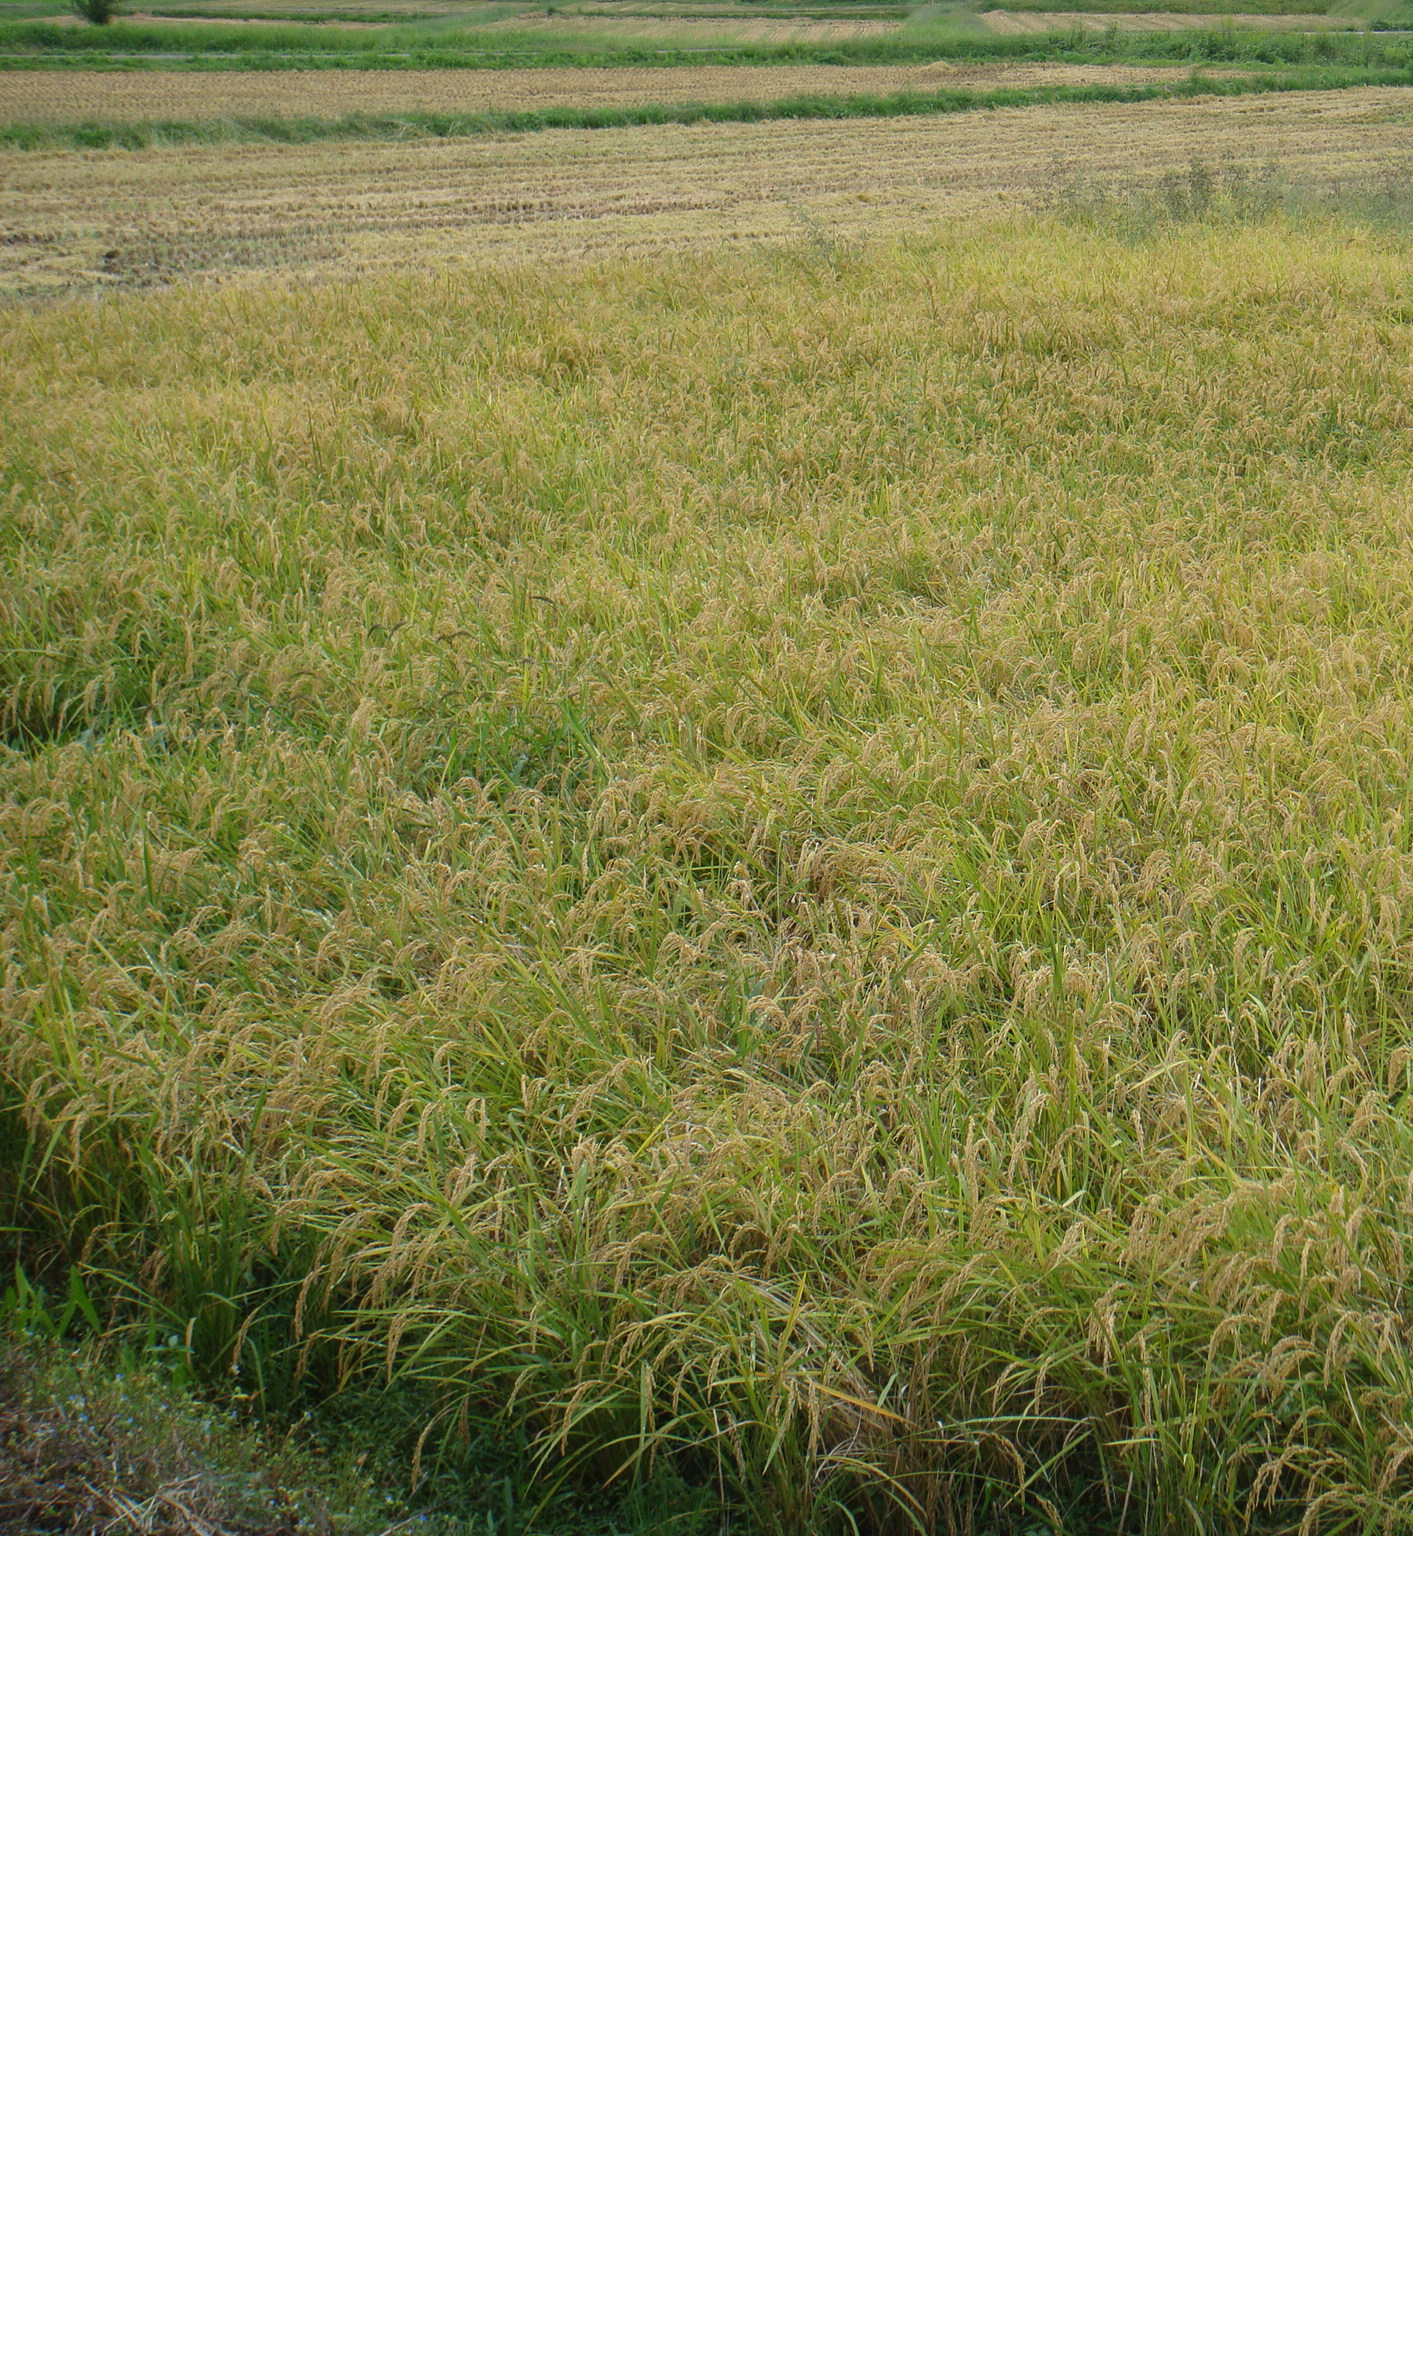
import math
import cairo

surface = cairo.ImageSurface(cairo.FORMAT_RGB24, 1413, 2360)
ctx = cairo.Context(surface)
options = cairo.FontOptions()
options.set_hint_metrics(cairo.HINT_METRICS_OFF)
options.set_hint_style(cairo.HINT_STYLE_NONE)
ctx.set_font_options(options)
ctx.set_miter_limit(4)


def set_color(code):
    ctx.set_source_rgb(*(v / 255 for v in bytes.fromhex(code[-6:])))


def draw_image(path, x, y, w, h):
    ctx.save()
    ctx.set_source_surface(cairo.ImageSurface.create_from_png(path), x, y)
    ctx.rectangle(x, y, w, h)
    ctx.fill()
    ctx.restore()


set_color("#ffffff")
ctx.paint()
draw_image("assets/img1.png", 0, 0, 1413, 1536)
surface.write_to_png("output.png")
